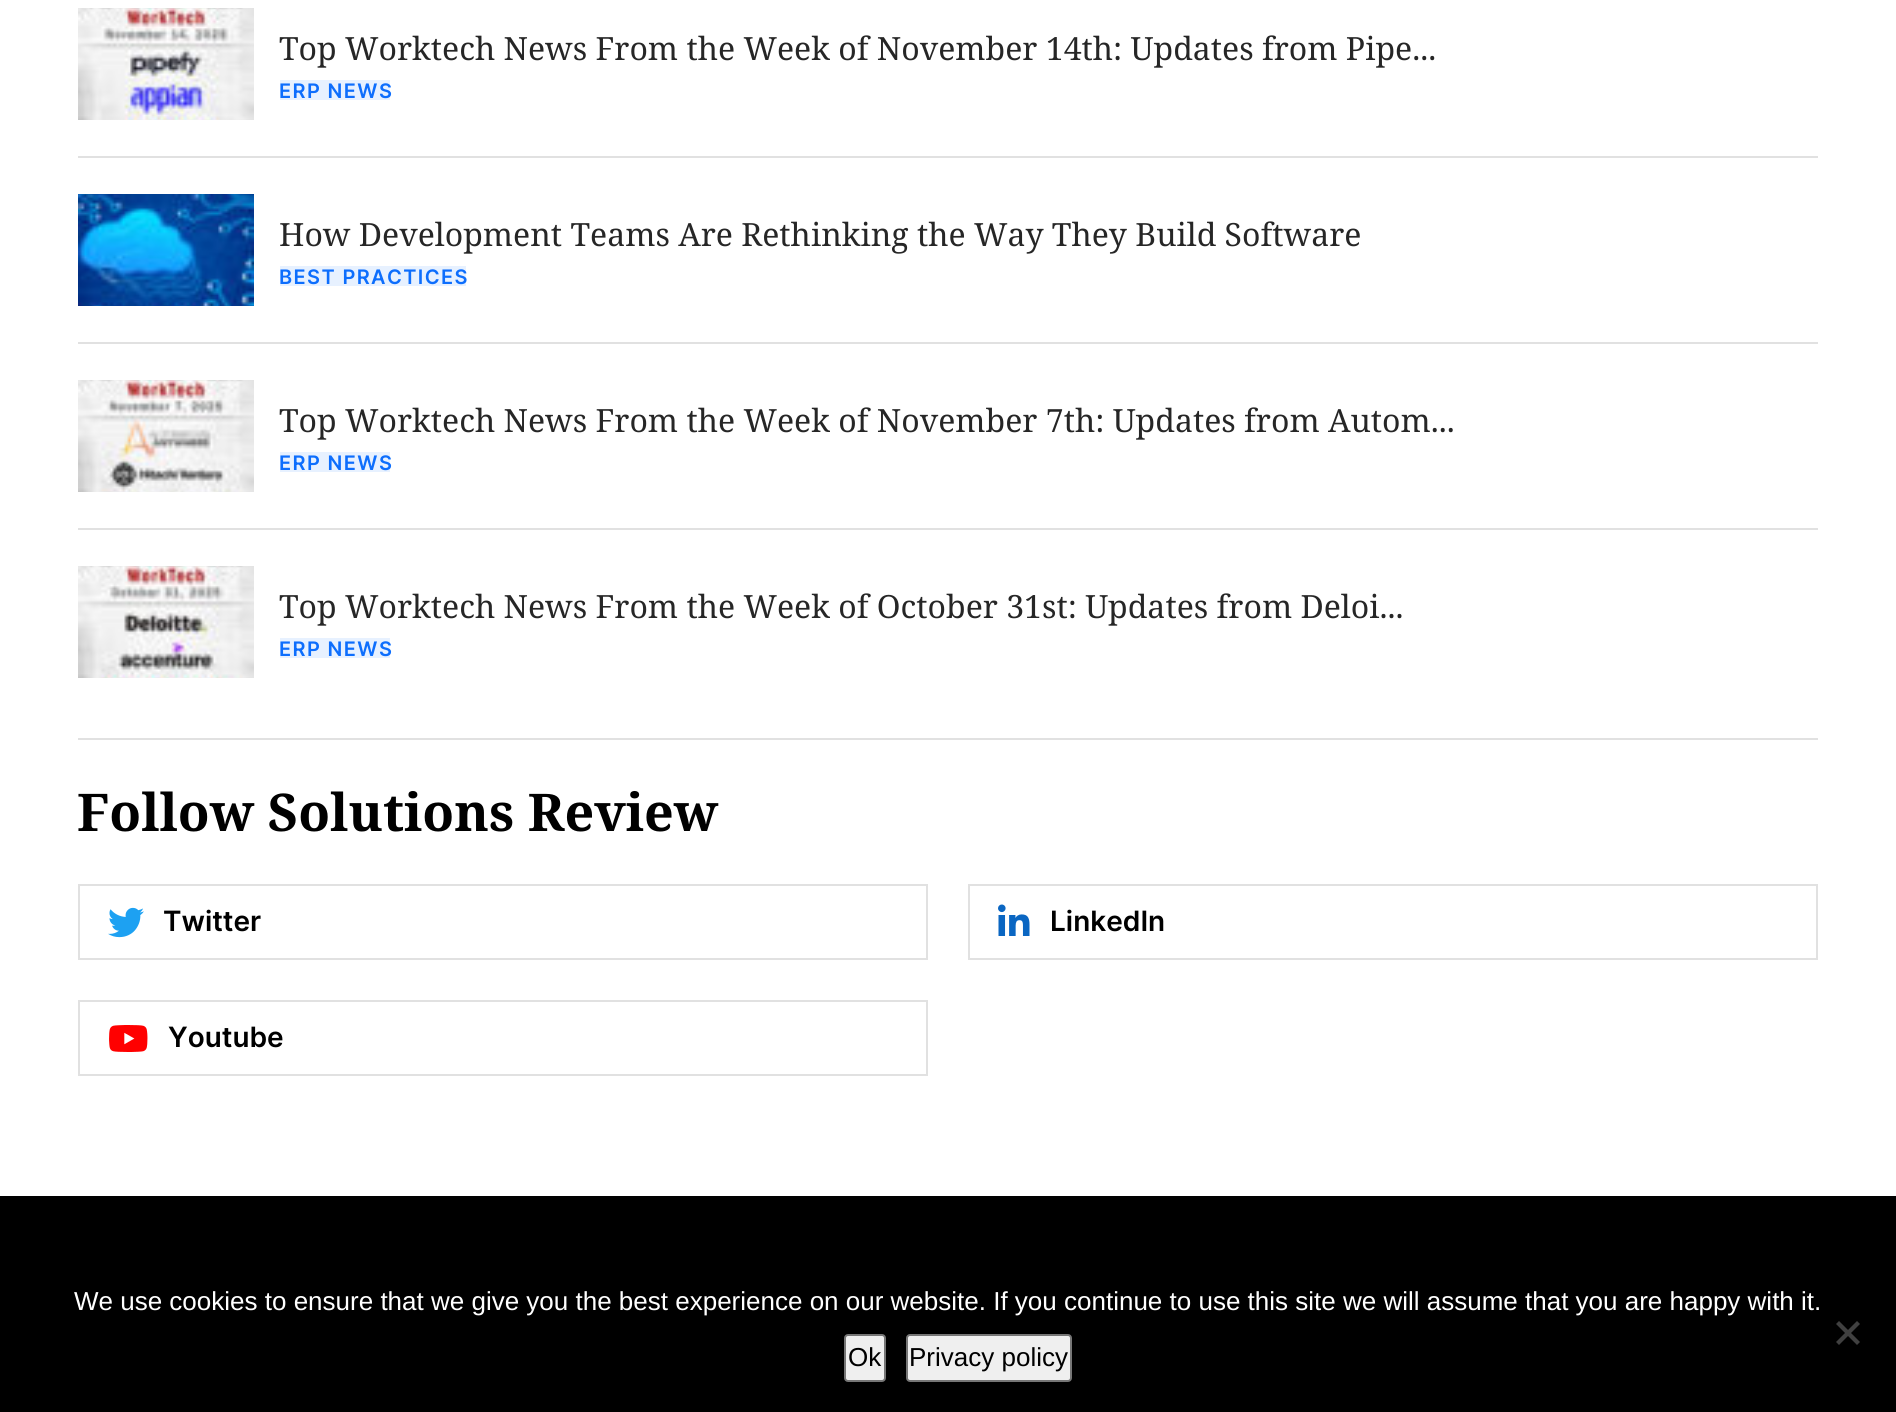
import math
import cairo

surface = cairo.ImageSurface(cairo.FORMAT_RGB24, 1896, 1412)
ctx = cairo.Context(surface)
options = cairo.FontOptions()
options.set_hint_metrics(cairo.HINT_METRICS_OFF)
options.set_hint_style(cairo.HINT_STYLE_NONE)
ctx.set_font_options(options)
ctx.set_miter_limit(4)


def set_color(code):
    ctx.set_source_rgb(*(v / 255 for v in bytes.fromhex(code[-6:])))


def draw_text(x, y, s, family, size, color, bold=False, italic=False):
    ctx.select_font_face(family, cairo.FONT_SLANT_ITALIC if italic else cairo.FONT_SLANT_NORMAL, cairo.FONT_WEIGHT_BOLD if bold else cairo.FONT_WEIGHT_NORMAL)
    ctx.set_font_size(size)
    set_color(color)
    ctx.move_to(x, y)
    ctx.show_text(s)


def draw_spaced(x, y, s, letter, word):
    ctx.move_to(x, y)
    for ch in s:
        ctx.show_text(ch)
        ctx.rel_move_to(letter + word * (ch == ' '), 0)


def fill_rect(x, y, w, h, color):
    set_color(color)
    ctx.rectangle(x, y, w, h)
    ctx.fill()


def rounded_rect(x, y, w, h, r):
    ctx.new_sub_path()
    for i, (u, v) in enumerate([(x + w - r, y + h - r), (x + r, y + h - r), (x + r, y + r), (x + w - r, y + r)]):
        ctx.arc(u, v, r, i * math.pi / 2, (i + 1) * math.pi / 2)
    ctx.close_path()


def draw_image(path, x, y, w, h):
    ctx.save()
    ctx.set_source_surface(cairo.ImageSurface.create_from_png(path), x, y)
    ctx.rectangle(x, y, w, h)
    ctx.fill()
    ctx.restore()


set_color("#ffffff")
ctx.paint()
draw_image("assets/img1.png", 78, 8, 176, 112)
draw_text(279, 60, "Top Worktech News From the Week of November 14th: Updates from Pipe...", "Noto Serif", 32, "#262626")
ctx.set_source_rgba(0.051, 0.431, 0.992, 0.1)
ctx.rectangle(280, 80, 110, 20)
ctx.fill()
ctx.select_font_face("Inter SemiBold")
ctx.set_font_size(20)
set_color("#0d6efd")
draw_spaced(279, 98, "ERP NEWS", 1.4, 0)
fill_rect(78, 156, 1740, 2, "#e1e1e1")
draw_image("assets/img2.png", 78, 194, 176, 112)
draw_text(279, 246, "How Development Teams Are Rethinking the Way They Build Software", "Noto Serif", 32, "#262626")
ctx.set_source_rgba(0.051, 0.431, 0.992, 0.1)
ctx.rectangle(280, 266, 186, 20)
ctx.fill()
ctx.select_font_face("Inter SemiBold")
ctx.set_font_size(20)
set_color("#0d6efd")
draw_spaced(279, 284, "BEST PRACTICES", 1.4, 0)
fill_rect(78, 342, 1740, 2, "#e1e1e1")
draw_image("assets/img3.png", 78, 380, 176, 112)
draw_text(279, 432, "Top Worktech News From the Week of November 7th: Updates from Autom...", "Noto Serif", 32, "#262626")
ctx.set_source_rgba(0.051, 0.431, 0.992, 0.1)
ctx.rectangle(280, 452, 110, 20)
ctx.fill()
ctx.select_font_face("Inter SemiBold")
ctx.set_font_size(20)
set_color("#0d6efd")
draw_spaced(279, 470, "ERP NEWS", 1.4, 0)
fill_rect(78, 528, 1740, 2, "#e1e1e1")
draw_image("assets/img4.png", 78, 566, 176, 112)
draw_text(279, 618, "Top Worktech News From the Week of October 31st: Updates from Deloi...", "Noto Serif", 32, "#262626")
ctx.set_source_rgba(0.051, 0.431, 0.992, 0.1)
ctx.rectangle(280, 638, 110, 20)
ctx.fill()
ctx.select_font_face("Inter SemiBold")
ctx.set_font_size(20)
set_color("#0d6efd")
draw_spaced(279, 656, "ERP NEWS", 1.4, 0)
fill_rect(78, 738, 1740, 2, "#e1e1e1")
draw_text(77, 831, "Follow Solutions Review", "Noto Serif", 52, "#000000", bold=True)
ctx.rectangle(79, 885, 848, 74)
set_color("#e1e1e1")
ctx.stroke()
draw_image("assets/img5.png", 108, 907, 36, 31)
draw_text(163, 931, "Twitter", "Inter SemiBold", 28, "#000000")
ctx.rectangle(969, 885, 848, 74)
set_color("#e1e1e1")
ctx.stroke()
draw_image("assets/img6.png", 998, 904, 32, 32)
draw_text(1050, 931, "LinkedIn", "Inter SemiBold", 28, "#000000")
ctx.rectangle(79, 1001, 848, 74)
set_color("#e1e1e1")
ctx.stroke()
draw_image("assets/img7.png", 109, 1025, 39, 27)
draw_text(168, 1047, "Youtube", "Inter SemiBold", 28, "#000000")
fill_rect(0, 1196, 1896, 216, "#000000")
draw_text(74, 1310, "We use cookies to ensure that we give you the best experience on our website. If you continue to use this site we will assume that you are happy with it.", "Liberation Sans", 26, "#ffffff")
set_color("#404040")
ctx.new_path()
ctx.move_to(1857, 1321)
ctx.line_to(1860, 1324)
ctx.line_to(1839, 1345)
ctx.line_to(1836, 1342)
ctx.close_path()
ctx.fill()
ctx.new_path()
ctx.move_to(1836, 1324)
ctx.line_to(1839, 1321)
ctx.line_to(1860, 1342)
ctx.line_to(1857, 1345)
ctx.close_path()
ctx.fill()
set_color("#efefef")
rounded_rect(845, 1335, 40, 46, 3)
ctx.fill_preserve()
set_color("#767676")
ctx.stroke()
draw_text(848, 1366, "Ok", "Liberation Sans", 26, "#000000")
set_color("#efefef")
rounded_rect(907, 1335, 164, 46, 3)
ctx.fill_preserve()
set_color("#767676")
ctx.stroke()
draw_text(909, 1366, "Privacy policy", "Liberation Sans", 26, "#000000")
surface.write_to_png("output.png")
